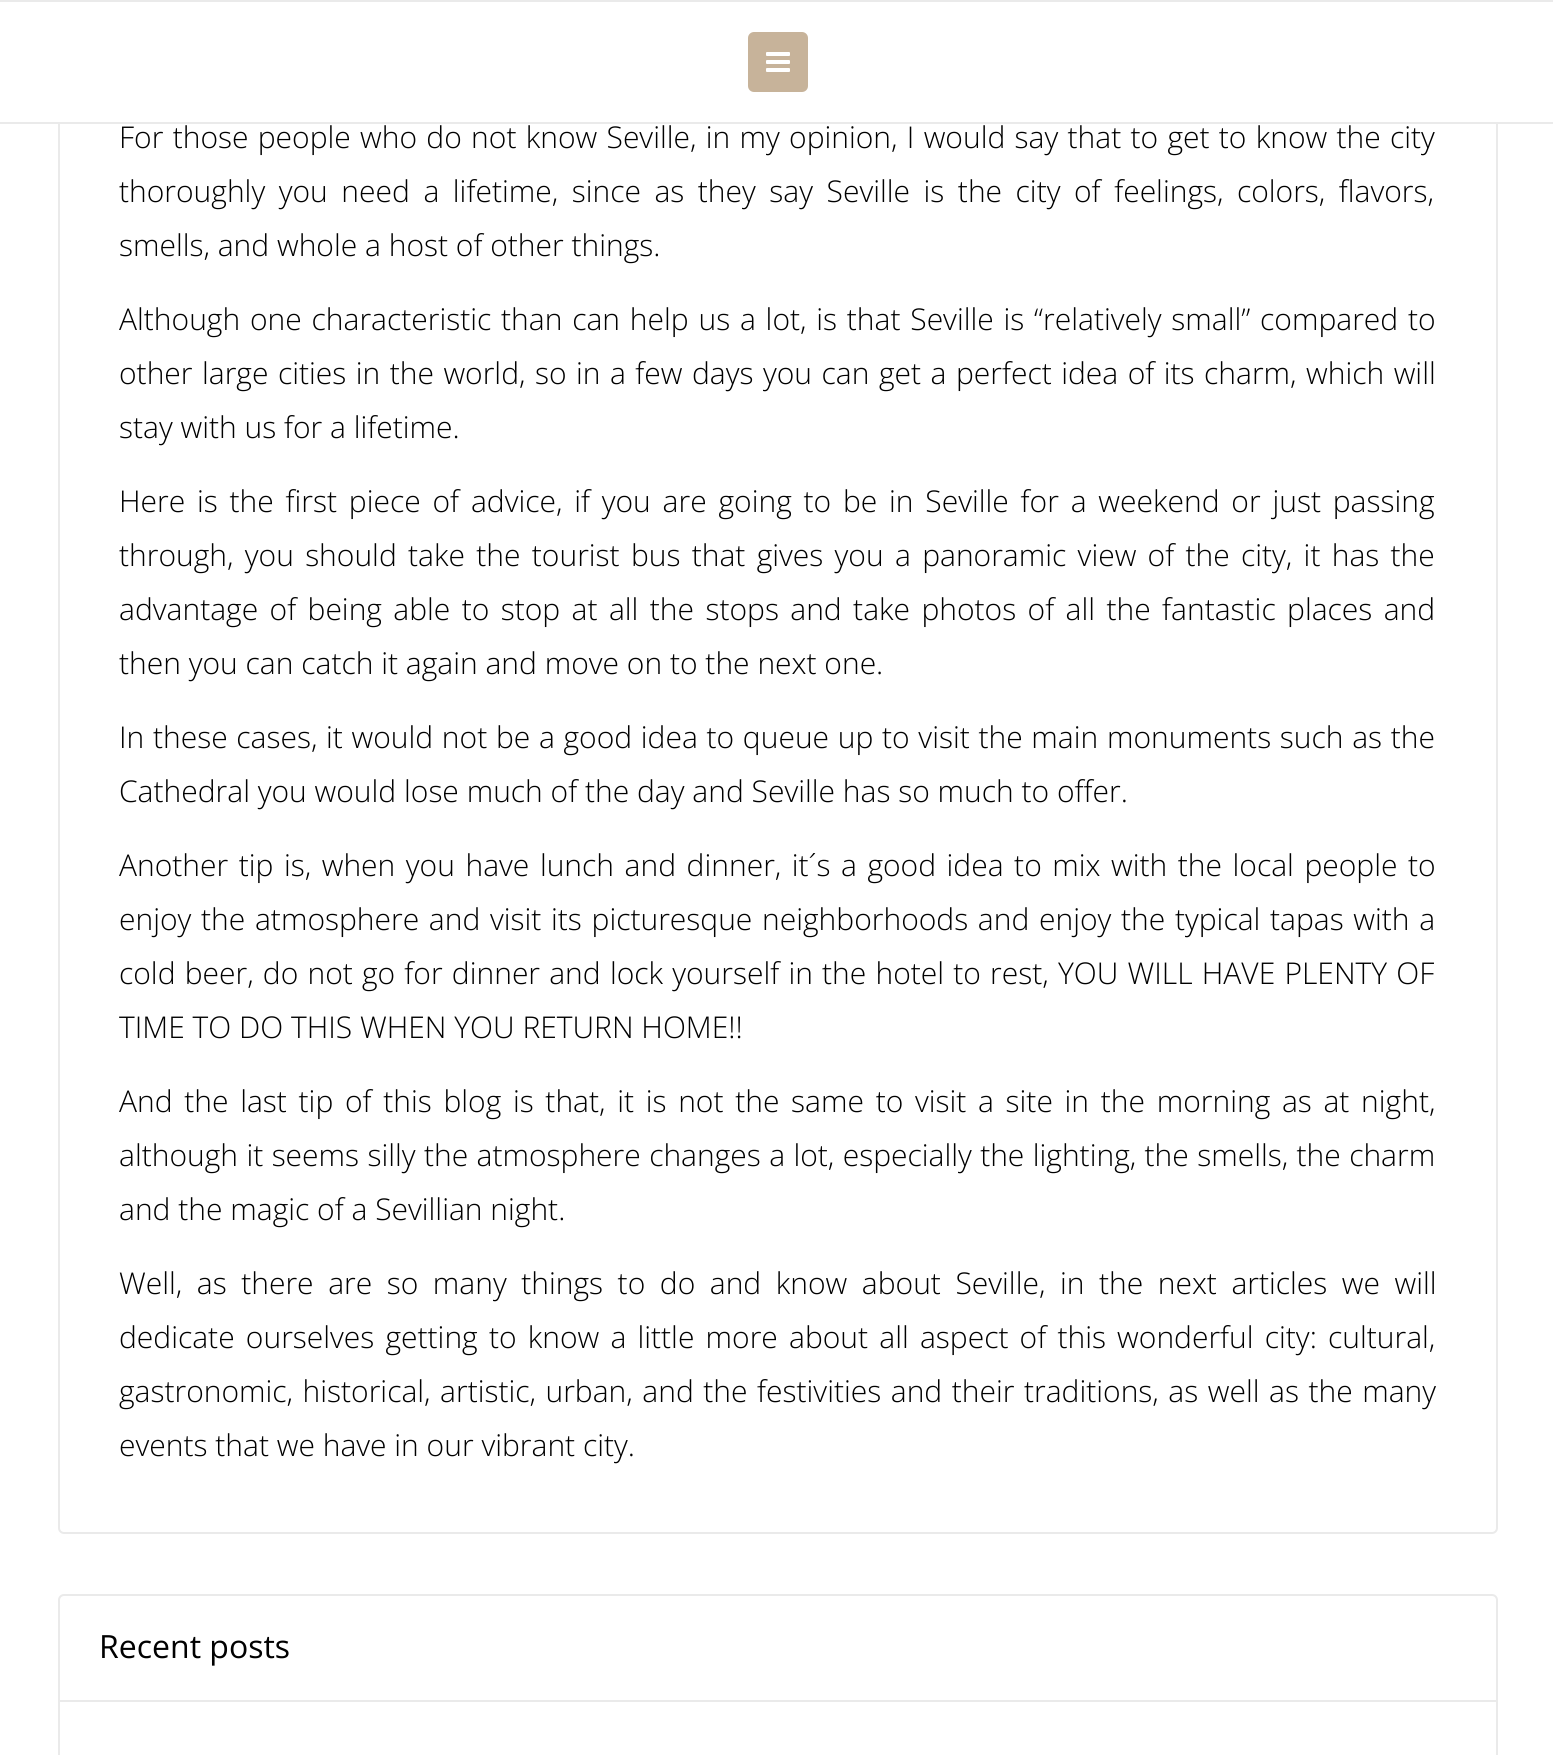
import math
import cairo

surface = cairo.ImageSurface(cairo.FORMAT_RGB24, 1553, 1755)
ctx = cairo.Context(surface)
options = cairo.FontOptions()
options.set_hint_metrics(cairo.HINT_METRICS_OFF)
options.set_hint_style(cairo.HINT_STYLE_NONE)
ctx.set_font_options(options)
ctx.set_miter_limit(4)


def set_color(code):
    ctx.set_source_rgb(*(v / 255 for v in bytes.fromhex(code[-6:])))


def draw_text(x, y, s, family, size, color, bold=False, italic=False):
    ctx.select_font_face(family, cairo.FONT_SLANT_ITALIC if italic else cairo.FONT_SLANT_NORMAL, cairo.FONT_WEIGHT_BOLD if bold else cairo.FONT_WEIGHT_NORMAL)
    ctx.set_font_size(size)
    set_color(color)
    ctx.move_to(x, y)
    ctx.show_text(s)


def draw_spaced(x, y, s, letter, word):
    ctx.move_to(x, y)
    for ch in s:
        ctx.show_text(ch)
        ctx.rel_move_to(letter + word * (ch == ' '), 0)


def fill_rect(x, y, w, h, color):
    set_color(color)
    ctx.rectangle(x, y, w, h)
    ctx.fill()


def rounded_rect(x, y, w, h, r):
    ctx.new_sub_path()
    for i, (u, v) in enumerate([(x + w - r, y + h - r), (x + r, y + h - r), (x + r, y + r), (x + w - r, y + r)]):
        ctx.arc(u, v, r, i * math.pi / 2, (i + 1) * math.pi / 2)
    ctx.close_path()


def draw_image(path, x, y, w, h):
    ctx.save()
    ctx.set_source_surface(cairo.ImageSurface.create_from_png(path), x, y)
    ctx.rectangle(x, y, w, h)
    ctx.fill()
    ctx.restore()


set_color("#ffffff")
ctx.paint()
rounded_rect(59, 59, 1438, 1474, 5)
set_color("#eaeaea")
ctx.stroke()
fill_rect(58, 58, 1440, 64, "#ffffff")
fill_rect(0, 0, 1553, 2, "#eaeaea")
fill_rect(0, 122, 1553, 2, "#eaeaea")
set_color("#c7b39a")
rounded_rect(748, 32, 60, 60, 6)
ctx.fill()
draw_image("assets/img1.png", 766, 52, 24, 20)
ctx.select_font_face("Open Sans Light")
ctx.set_font_size(30)
set_color("#000000")
draw_spaced(119, 148, "For those people who do not know Seville, in my opinion, I would say that to get to know the city", 0, 1.5)
draw_spaced(119, 202, "thoroughly you need a lifetime, since as they say Seville is the city of feelings, colors, flavors,", 0, 5.75)
draw_text(119, 256, "smells, and whole a host of other things.", "Open Sans Light", 30, "#000000")
draw_spaced(119, 330, "Although one characteristic than can help us a lot, is that Seville is “relatively small” compared to", 0, 2)
draw_spaced(119, 384, "other large cities in the world, so in a few days you can get a perfect idea of its charm, which will", 0, 1.7)
draw_text(119, 438, "stay with us for a lifetime.", "Open Sans Light", 30, "#000000")
draw_spaced(119, 512, "Here is the first piece of advice, if you are going to be in Seville for a weekend or just passing", 0, 4)
draw_spaced(119, 566, "through, you should take the tourist bus that gives you a panoramic view of the city, it has the", 0, 3.5)
draw_spaced(119, 620, "advantage of being able to stop at all the stops and take photos of all the fantastic places and", 0, 3.6)
draw_text(119, 674, "then you can catch it again and move on to the next one.", "Open Sans Light", 30, "#000000")
draw_spaced(119, 748, "In these cases, it would not be a good idea to queue up to visit the main monuments such as the", 0, 0.9)
draw_text(119, 802, "Cathedral you would lose much of the day and Seville has so much to offer.", "Open Sans Light", 30, "#000000")
draw_spaced(119, 876, "Another tip is, when you have lunch and dinner, it´s a good idea to mix with the local people to", 0, 2.75)
draw_spaced(119, 930, "enjoy the atmosphere and visit its picturesque neighborhoods and enjoy the typical tapas with a", 0, 1.9)
draw_spaced(119, 984, "cold beer, do not go for dinner and lock yourself in the hotel to rest, YOU WILL HAVE PLENTY OF", 0, 1.4)
draw_text(119, 1038, "TIME TO DO THIS WHEN YOU RETURN HOME!!", "Open Sans Light", 30, "#000000")
draw_spaced(119, 1112, "And the last tip of this blog is that, it is not the same to visit a site in the morning as at night,", 0, 3.9)
draw_spaced(119, 1166, "although it seems silly the atmosphere changes a lot, especially the lighting, the smells, the charm", 0, 0.6)
draw_text(119, 1220, "and the magic of a Sevillian night.", "Open Sans Light", 30, "#000000")
draw_spaced(119, 1294, "Well, as there are so many things to do and know about Seville, in the next articles we will", 0, 6.75)
draw_spaced(119, 1348, "dedicate ourselves getting to know a little more about all aspect of this wonderful city: cultural,", 0, 3.4)
draw_spaced(119, 1402, "gastronomic, historical, artistic, urban, and the festivities and their traditions, as well as the many", 0, 1.75)
draw_text(119, 1456, "events that we have in our vibrant city.", "Open Sans Light", 30, "#000000")
rounded_rect(59, 1595, 1438, 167, 5)
set_color("#eaeaea")
ctx.stroke()
fill_rect(60, 1700, 1436, 2, "#eaeaea")
draw_text(99, 1658, "Recent posts", "Open Sans", 32, "#000000")
surface.write_to_png("output.png")
